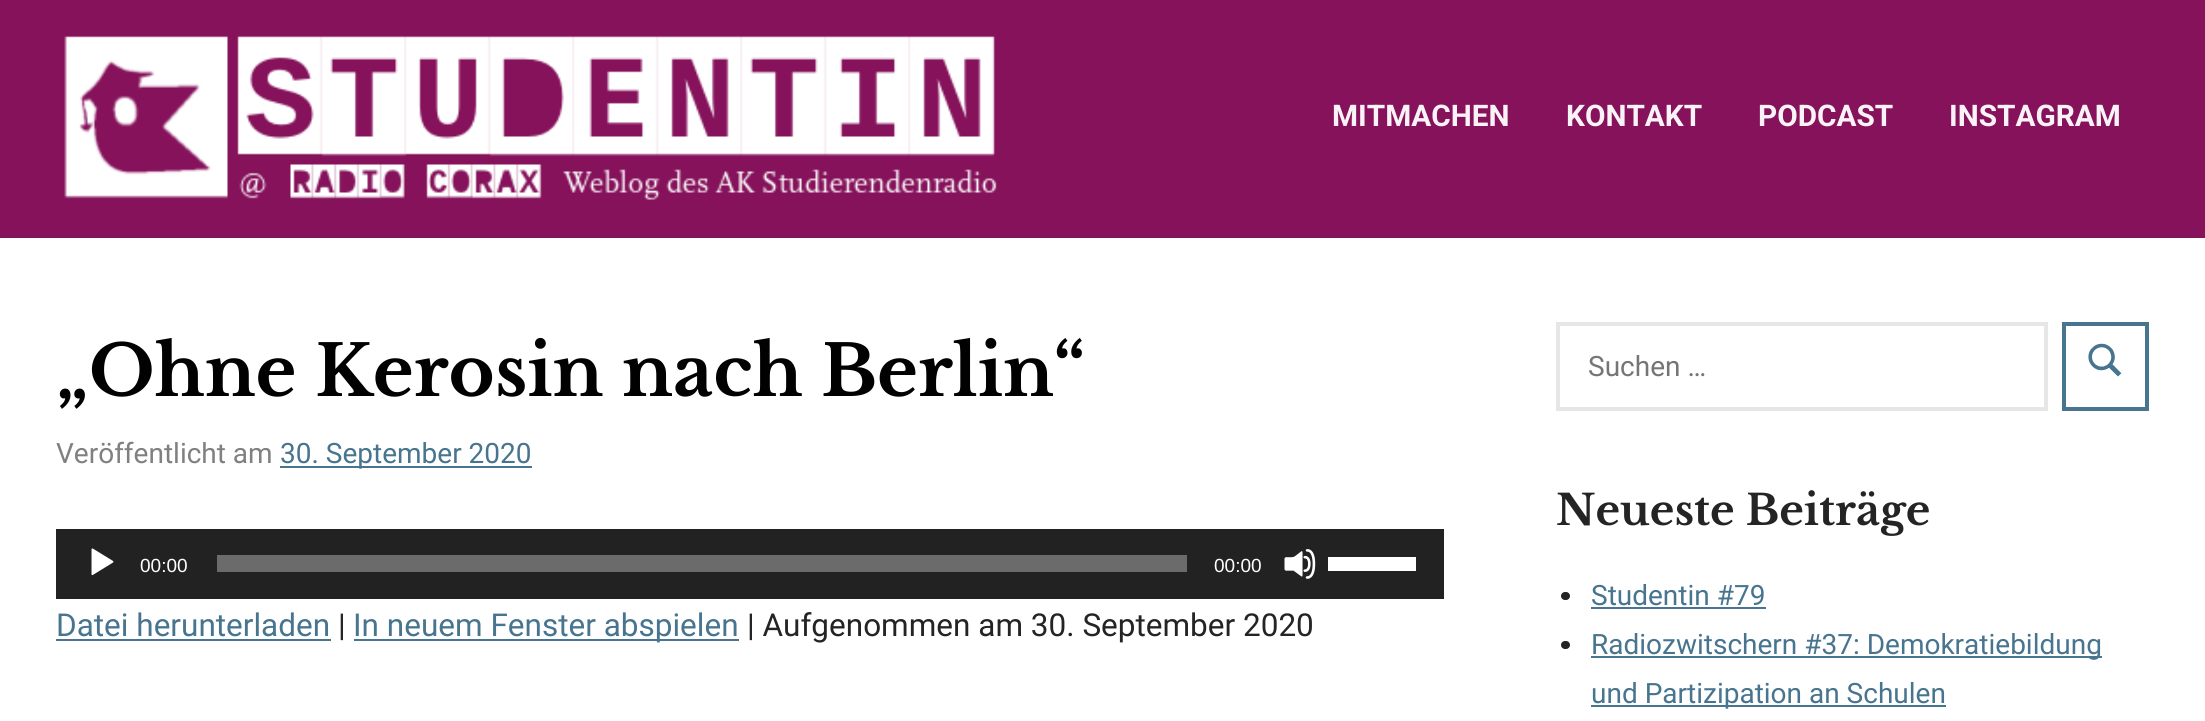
import math
import cairo

surface = cairo.ImageSurface(cairo.FORMAT_RGB24, 2205, 721)
ctx = cairo.Context(surface)
options = cairo.FontOptions()
options.set_hint_metrics(cairo.HINT_METRICS_OFF)
options.set_hint_style(cairo.HINT_STYLE_NONE)
ctx.set_font_options(options)
ctx.set_miter_limit(4)


def set_color(code):
    ctx.set_source_rgb(*(v / 255 for v in bytes.fromhex(code[-6:])))


def draw_text(x, y, s, family, size, color, bold=False, italic=False):
    ctx.select_font_face(family, cairo.FONT_SLANT_ITALIC if italic else cairo.FONT_SLANT_NORMAL, cairo.FONT_WEIGHT_BOLD if bold else cairo.FONT_WEIGHT_NORMAL)
    ctx.set_font_size(size)
    set_color(color)
    ctx.move_to(x, y)
    ctx.show_text(s)


def fill_rect(x, y, w, h, color):
    set_color(color)
    ctx.rectangle(x, y, w, h)
    ctx.fill()


def rounded_rect(x, y, w, h, r):
    ctx.new_sub_path()
    for i, (u, v) in enumerate([(x + w - r, y + h - r), (x + r, y + h - r), (x + r, y + r), (x + w - r, y + r)]):
        ctx.arc(u, v, r, i * math.pi / 2, (i + 1) * math.pi / 2)
    ctx.close_path()


def draw_image(path, x, y, w, h):
    ctx.save()
    ctx.set_source_surface(cairo.ImageSurface.create_from_png(path), x, y)
    ctx.rectangle(x, y, w, h)
    ctx.fill()
    ctx.restore()


set_color("#ffffff")
ctx.paint()
fill_rect(0, 0, 2205, 238, "#85125b")
draw_image("assets/img1.png", 64, 36, 933, 164)
draw_text(1332, 126, "MITMACHEN", "Roboto", 29.75, "#f9f3f7", bold=True)
draw_text(1566, 126, "KONTAKT", "Roboto", 29.75, "#f9f3f7", bold=True)
draw_text(1758, 126, "PODCAST", "Roboto", 29.75, "#f9f3f7", bold=True)
draw_text(1949, 126, "INSTAGRAM", "Roboto", 29.75, "#f9f3f7", bold=True)
draw_text(56, 396, "„Ohne Kerosin nach Berlin“", "Libre Baskerville", 70, "#020101", bold=True)
draw_text(56, 463, "Veröffentlicht am", "Roboto", 28, "#808080")
fill_rect(280, 466, 252, 2, "#47748e")
draw_text(280, 463, "30. September 2020", "Roboto", 28, "#47748e")
fill_rect(56, 529, 1388, 70, "#222222")
draw_image("assets/img2.png", 91, 548, 23, 28)
draw_text(140, 572, "00:00", "Liberation Sans", 19, "#ffffff")
fill_rect(217, 555, 970, 17, "#6b6b6b")
draw_text(1214, 572, "00:00", "Liberation Sans", 19, "#ffffff")
draw_image("assets/img3.png", 1284, 549, 32, 30)
fill_rect(1328, 557, 88, 14, "#ffffff")
draw_text(56, 636, "Datei herunterladen", "Roboto", 31.5, "#47748e")
fill_rect(56, 639, 275, 2, "#47748e")
draw_text(338, 636, "|", "Roboto", 31.5, "#242424")
fill_rect(354, 639, 385, 2, "#47748e")
draw_text(353, 636, "In neuem Fenster abspielen", "Roboto", 31.5, "#47748e")
draw_text(747, 636, "| Aufgenommen am 30. September 2020", "Roboto", 31.5, "#242424")
ctx.rectangle(1558, 324, 488, 85)
set_color("#e6e6e6")
ctx.set_line_width(4)
ctx.stroke()
draw_text(1588, 376, "Suchen …", "Roboto", 28, "#757575")
ctx.rectangle(2064, 324, 83, 85)
set_color("#47748e")
ctx.stroke()
draw_image("assets/img4.png", 2088, 343, 34, 34)
draw_text(1556, 525, "Neueste Beiträge", "Libre Baskerville", 42, "#242424", bold=True)
rounded_rect(1561, 592, 9, 8, 4)
ctx.fill()
draw_text(1591, 605, "Studentin #79", "Roboto", 28, "#47748e")
fill_rect(1591, 607, 175, 2, "#47748e")
set_color("#242424")
rounded_rect(1561, 641, 9, 8, 4)
ctx.fill()
fill_rect(1591, 656, 511, 2, "#47748e")
draw_text(1591, 654, "Radiozwitschern #37: Demokratiebildung", "Roboto", 28, "#47748e")
fill_rect(1591, 705, 355, 2, "#47748e")
draw_text(1591, 703, "und Partizipation an Schulen", "Roboto", 28, "#47748e")
surface.write_to_png("output.png")
